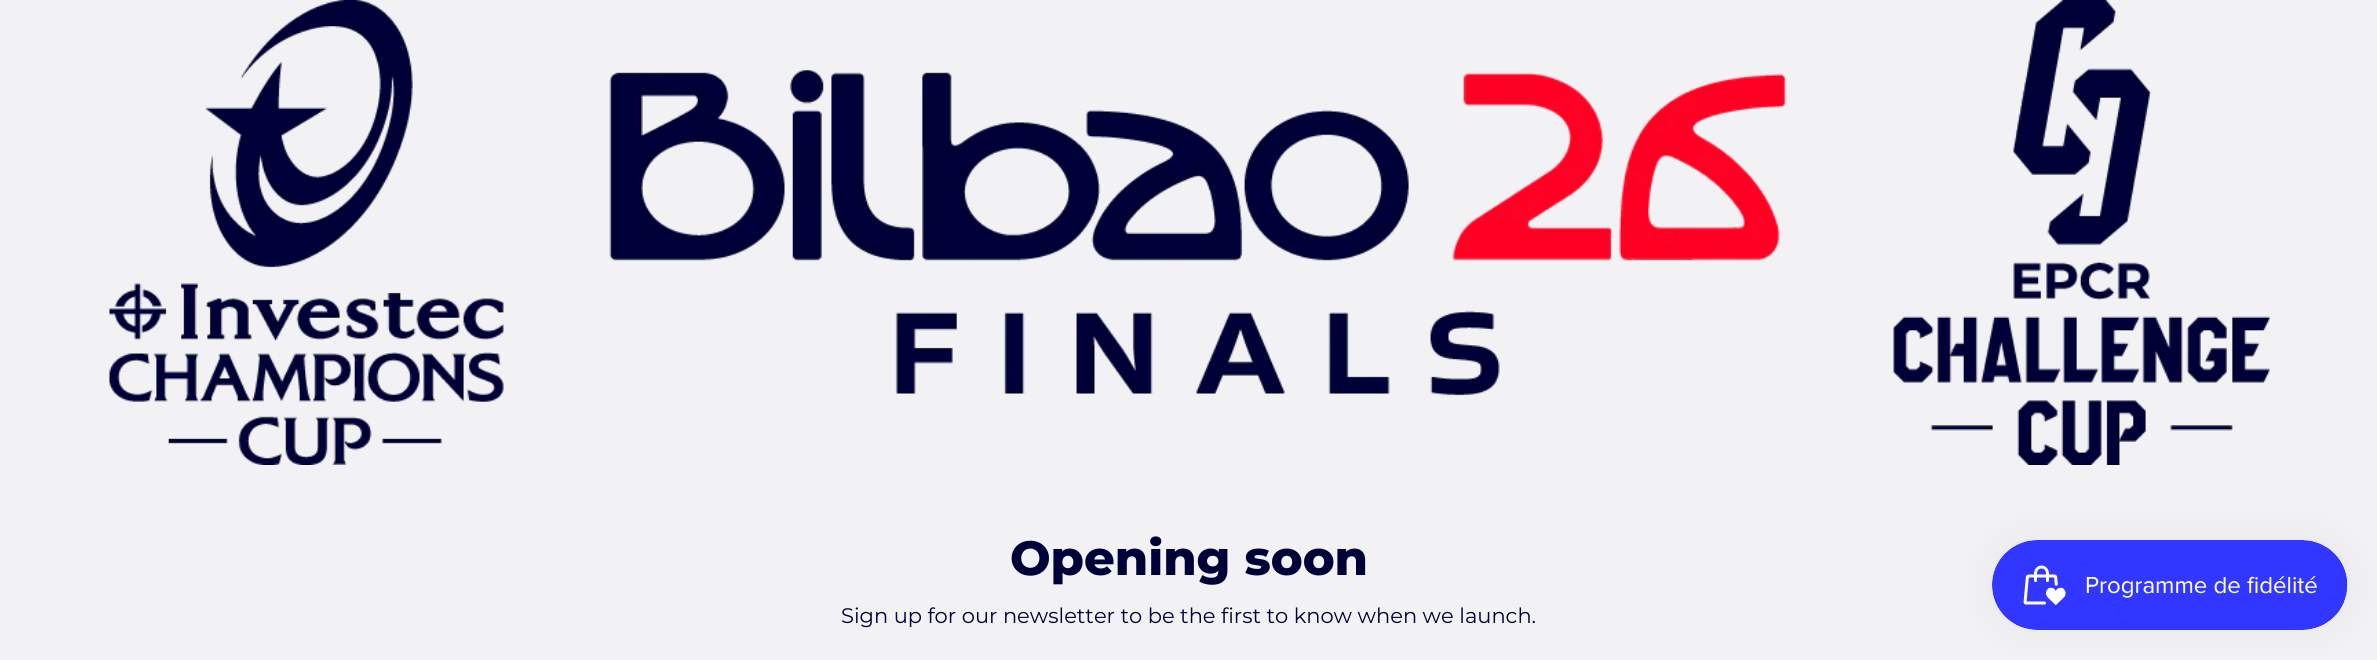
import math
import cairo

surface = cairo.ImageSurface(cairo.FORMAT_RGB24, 2377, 660)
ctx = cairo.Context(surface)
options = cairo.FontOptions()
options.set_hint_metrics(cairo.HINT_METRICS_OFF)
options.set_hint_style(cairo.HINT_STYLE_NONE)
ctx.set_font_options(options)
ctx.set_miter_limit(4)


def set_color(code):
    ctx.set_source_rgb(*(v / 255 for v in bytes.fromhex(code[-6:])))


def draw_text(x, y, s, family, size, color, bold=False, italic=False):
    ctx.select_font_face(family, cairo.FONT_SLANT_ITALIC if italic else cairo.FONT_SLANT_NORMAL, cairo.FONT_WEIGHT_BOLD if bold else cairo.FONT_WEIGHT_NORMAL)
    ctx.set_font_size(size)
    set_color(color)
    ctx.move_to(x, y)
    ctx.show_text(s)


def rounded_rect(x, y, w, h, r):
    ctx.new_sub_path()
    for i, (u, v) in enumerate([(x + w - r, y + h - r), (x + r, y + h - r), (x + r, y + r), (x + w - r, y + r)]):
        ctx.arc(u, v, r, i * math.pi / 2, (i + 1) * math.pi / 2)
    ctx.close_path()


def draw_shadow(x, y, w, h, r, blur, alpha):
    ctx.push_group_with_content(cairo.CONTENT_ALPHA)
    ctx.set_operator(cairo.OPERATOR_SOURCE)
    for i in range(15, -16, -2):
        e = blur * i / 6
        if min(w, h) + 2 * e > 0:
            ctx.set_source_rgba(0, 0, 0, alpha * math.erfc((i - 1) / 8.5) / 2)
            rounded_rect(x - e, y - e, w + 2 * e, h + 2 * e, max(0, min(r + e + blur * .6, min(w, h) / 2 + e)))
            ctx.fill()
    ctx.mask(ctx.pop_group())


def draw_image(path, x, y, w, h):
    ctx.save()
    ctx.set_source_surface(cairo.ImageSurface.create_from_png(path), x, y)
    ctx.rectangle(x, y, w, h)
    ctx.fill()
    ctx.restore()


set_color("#f2f2f5")
ctx.paint()
draw_image("assets/img1.png", 109, 0, 2161, 465)
draw_text(1010, 575, "Opening soon", "Montserrat ExtraBold", 48, "#000038")
draw_text(841, 623, "Sign up for our newsletter to be the first to know when we launch.", "Montserrat", 21, "#000038")
set_color("#000000")
draw_shadow(1992, 540, 356, 90, 45, 19, 0.05)
draw_image("assets/img2.png", 1992, 540, 356, 90)
surface.write_to_png("output.png")
